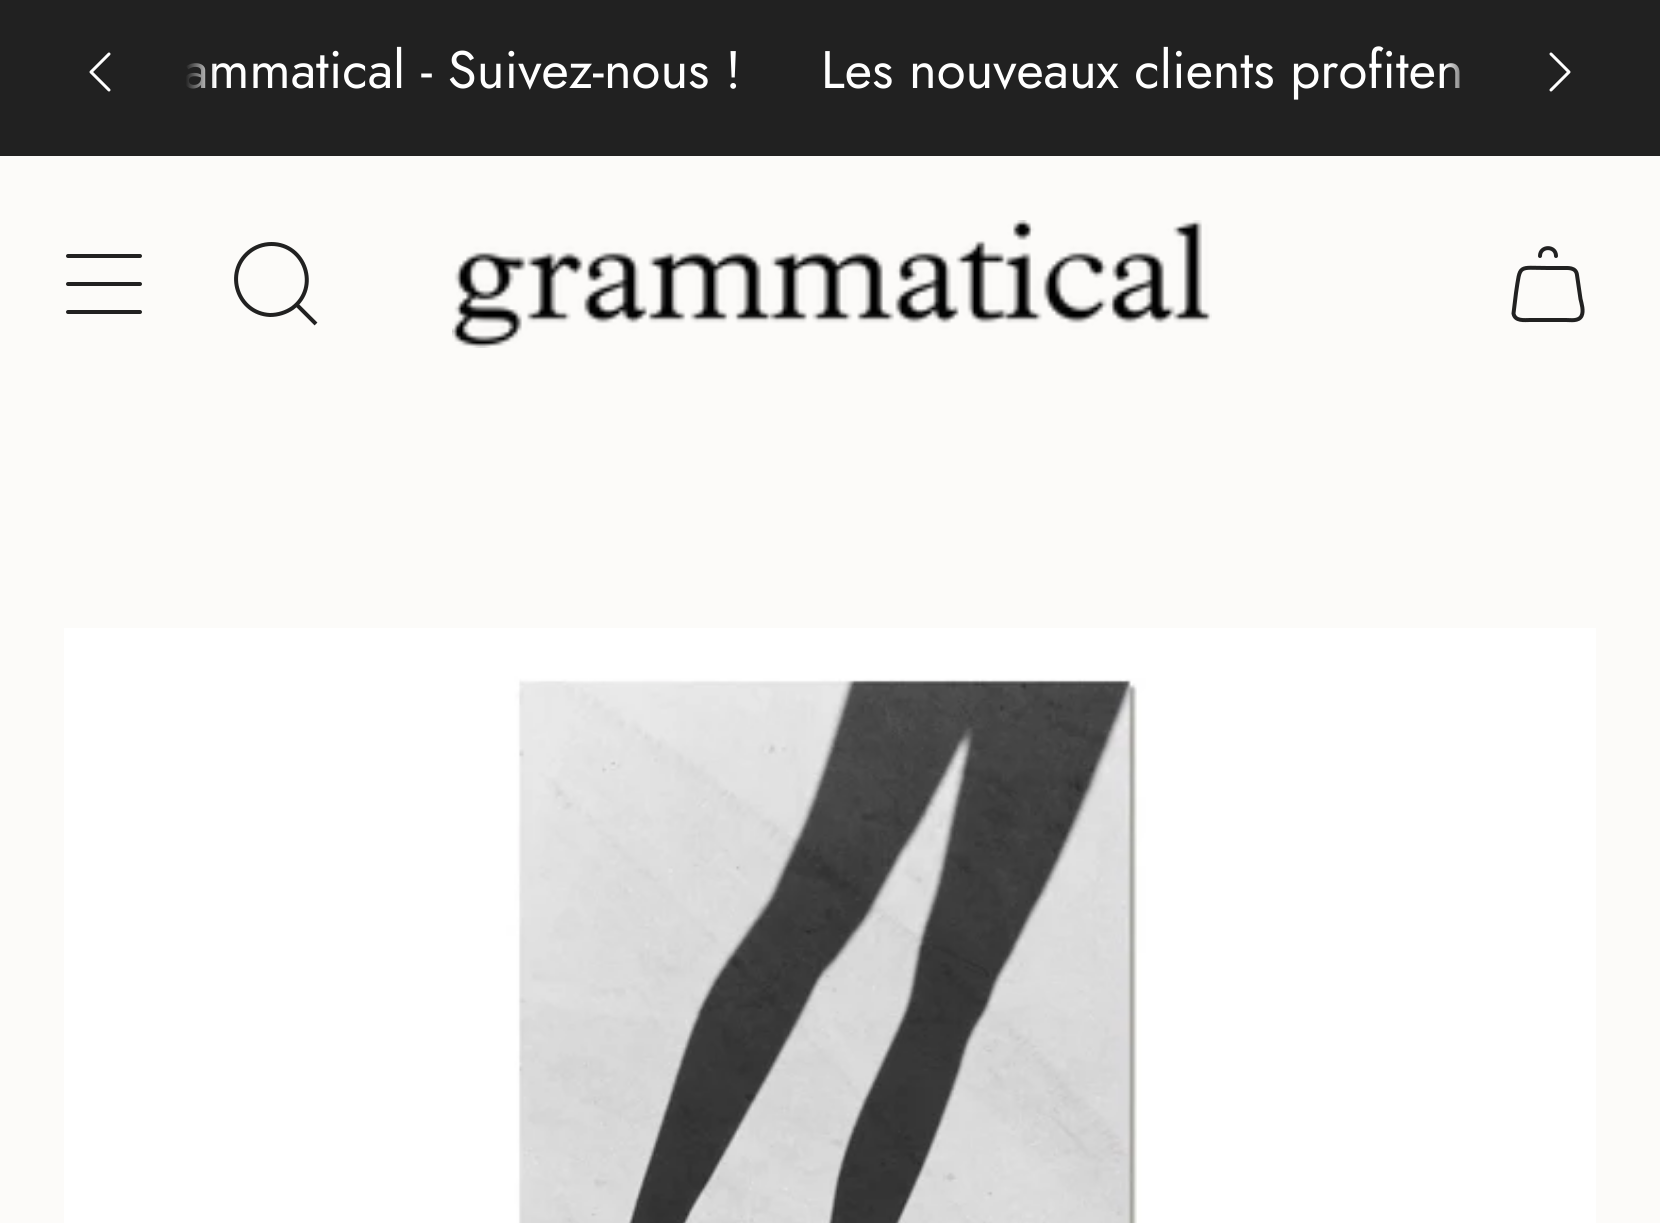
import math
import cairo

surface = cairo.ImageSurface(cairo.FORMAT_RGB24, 1660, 1223)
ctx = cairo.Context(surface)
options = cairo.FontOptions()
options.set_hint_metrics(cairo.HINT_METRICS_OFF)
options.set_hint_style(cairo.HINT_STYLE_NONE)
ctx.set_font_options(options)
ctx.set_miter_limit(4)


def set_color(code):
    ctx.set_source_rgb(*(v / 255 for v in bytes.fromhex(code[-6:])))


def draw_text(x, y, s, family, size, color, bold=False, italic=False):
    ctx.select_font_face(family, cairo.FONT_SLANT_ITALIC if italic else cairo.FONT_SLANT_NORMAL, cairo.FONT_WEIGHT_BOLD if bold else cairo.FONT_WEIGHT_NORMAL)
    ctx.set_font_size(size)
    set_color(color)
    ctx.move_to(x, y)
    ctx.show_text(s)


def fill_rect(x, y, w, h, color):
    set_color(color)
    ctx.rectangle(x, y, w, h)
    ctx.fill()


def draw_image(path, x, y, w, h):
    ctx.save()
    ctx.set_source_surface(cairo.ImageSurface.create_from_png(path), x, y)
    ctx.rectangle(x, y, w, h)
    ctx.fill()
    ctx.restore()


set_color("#fcfbf9")
ctx.paint()
fill_rect(0, 0, 1660, 156, "#212121")
ctx.new_path()
ctx.move_to(109, 54)
ctx.line_to(91, 72)
ctx.line_to(109, 90)
set_color("#ffffff")
ctx.set_line_width(3)
ctx.set_line_cap(cairo.LINE_CAP_ROUND)
ctx.set_line_join(cairo.LINE_JOIN_ROUND)
ctx.stroke()
draw_text(183, 88, "ammatical - Suivez-nous !", "Jost", 52.75, "#ffffff")
draw_text(821, 88, "Les nouveaux clients profiten", "Jost", 52.75, "#ffffff")
gradient = cairo.LinearGradient(64, 72, 216, 72)
gradient.add_color_stop_rgba(0.8, 0.129, 0.129, 0.129, 1)
gradient.add_color_stop_rgba(1, 0.129, 0.129, 0.129, 0)
ctx.set_source(gradient)
ctx.rectangle(184, 63, 31, 26)
ctx.fill()
gradient = cairo.LinearGradient(1596, 72, 1444, 72)
gradient.add_color_stop_rgba(0.8, 0.129, 0.129, 0.129, 1)
gradient.add_color_stop_rgba(1, 0.129, 0.129, 0.129, 0)
ctx.set_source(gradient)
ctx.rectangle(1445, 63, 15, 25)
ctx.fill()
ctx.new_path()
ctx.move_to(1551, 54)
ctx.line_to(1569, 72)
ctx.line_to(1551, 90)
set_color("#ffffff")
ctx.stroke()
ctx.new_path()
ctx.move_to(68, 256)
ctx.line_to(140, 256)
ctx.move_to(68, 284)
ctx.line_to(140, 284)
ctx.move_to(68, 312)
ctx.line_to(140, 312)
set_color("#212121")
ctx.set_line_width(4)
ctx.stroke()
ctx.new_path()
ctx.move_to(271.5, 244)
ctx.curve_to(305, 244, 320, 287.5, 292.5, 308)
ctx.curve_to(286, 312.5, 278, 315, 270, 315)
ctx.curve_to(237.5, 313.5, 224, 272.5, 249, 252)
ctx.curve_to(255, 247, 263, 244, 271.5, 244)
ctx.close_path()
ctx.move_to(296.5, 304.5)
ctx.line_to(316, 324)
ctx.set_line_cap(cairo.LINE_CAP_BUTT)
ctx.set_line_join(cairo.LINE_JOIN_MITER)
ctx.stroke()
draw_image("assets/img1.png", 452, 220, 760, 128)
ctx.new_path()
ctx.move_to(1577, 275)
ctx.line_to(1580.5, 299)
ctx.curve_to(1581.5, 303.5, 1584, 311, 1581.5, 316)
ctx.curve_to(1578.5, 321.5, 1571, 320, 1566, 320)
ctx.line_to(1530, 320)
ctx.curve_to(1524.5, 320, 1515, 321.5, 1513.5, 313.5)
ctx.line_to(1516, 293)
ctx.curve_to(1520.5, 263.5, 1517.5, 268, 1548, 268)
ctx.line_to(1562, 268)
ctx.curve_to(1568, 268, 1576, 267, 1577, 275)
ctx.close_path()
ctx.move_to(1556, 256)
ctx.curve_to(1556, 245.5, 1540, 245.5, 1540, 256)
ctx.set_line_cap(cairo.LINE_CAP_ROUND)
ctx.set_line_join(cairo.LINE_JOIN_ROUND)
ctx.stroke()
draw_image("assets/img2.png", 64, 628, 1532, 595)
surface.write_to_png("output.png")
